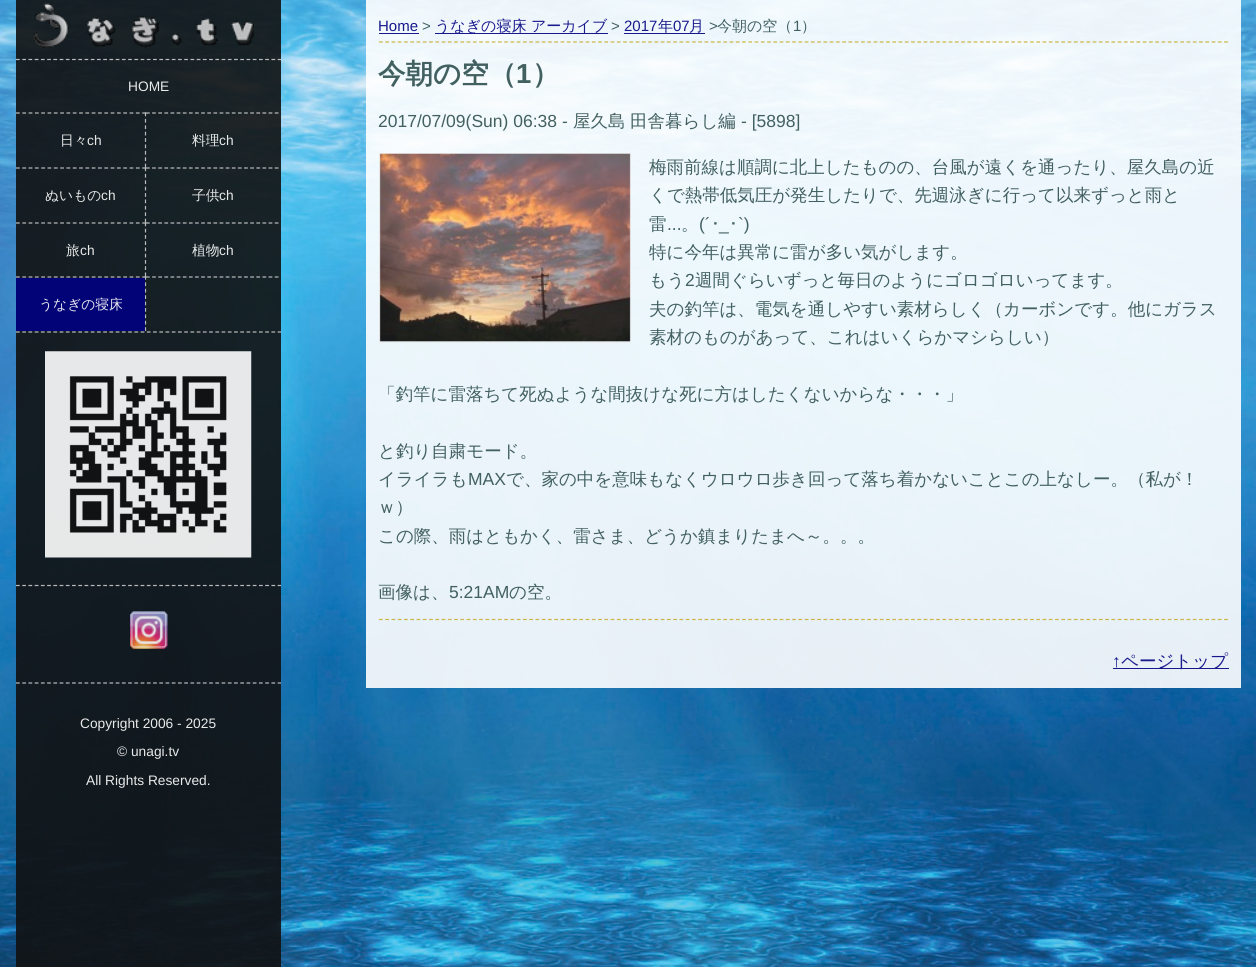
import math
import cairo

surface = cairo.ImageSurface(cairo.FORMAT_RGB24, 1256, 967)
ctx = cairo.Context(surface)
options = cairo.FontOptions()
options.set_hint_metrics(cairo.HINT_METRICS_OFF)
options.set_hint_style(cairo.HINT_STYLE_NONE)
ctx.set_font_options(options)
ctx.set_miter_limit(4)


def set_color(code):
    ctx.set_source_rgb(*(v / 255 for v in bytes.fromhex(code[-6:])))


def draw_text(x, y, s, family, size, color, bold=False, italic=False):
    ctx.select_font_face(family, cairo.FONT_SLANT_ITALIC if italic else cairo.FONT_SLANT_NORMAL, cairo.FONT_WEIGHT_BOLD if bold else cairo.FONT_WEIGHT_NORMAL)
    ctx.set_font_size(size)
    set_color(color)
    ctx.move_to(x, y)
    ctx.show_text(s)


def fill_rect(x, y, w, h, color):
    set_color(color)
    ctx.rectangle(x, y, w, h)
    ctx.fill()


def draw_image(path, x, y, w, h):
    ctx.save()
    ctx.set_source_surface(cairo.ImageSurface.create_from_png(path), x, y)
    ctx.rectangle(x, y, w, h)
    ctx.fill()
    ctx.restore()


set_color("#ffffff")
ctx.paint()
draw_image("assets/img1.png", 0, 0, 1256, 967)
ctx.set_source_rgba(0.067, 0.067, 0.067, 0.9)
ctx.rectangle(16, 0, 265, 967)
ctx.fill()
draw_image("assets/img2.png", 33, 3, 221, 45)
ctx.new_path()
ctx.move_to(16, 59.5)
ctx.line_to(281, 59.5)
ctx.set_source_rgba(0.8, 0.8, 0.8, 0.9)
ctx.set_line_width(1.2)
ctx.set_dash([3.75, 2.48])
ctx.stroke()
draw_text(128, 91, "HOME", "Liberation Sans", 13.75, "#e8e9e9")
ctx.new_path()
ctx.move_to(16, 113)
ctx.line_to(146, 113)
ctx.set_source_rgba(0.8, 0.8, 0.8, 0.9)
ctx.set_dash([3.75, 2.56])
ctx.stroke()
ctx.new_path()
ctx.move_to(145.5, 112.5)
ctx.line_to(145.5, 167.5)
ctx.set_dash([3.75, 2.65])
ctx.stroke()
draw_text(60, 145, "日々", "WenQuanYi Zen Hei Medium", 13.75, "#e8e9e9")
draw_text(87, 145, "ch", "Liberation Sans", 13.75, "#e8e9e9")
ctx.new_path()
ctx.move_to(146, 113)
ctx.line_to(279, 113)
ctx.set_source_rgba(0.8, 0.8, 0.8, 0.9)
ctx.set_dash([3.75, 2.38])
ctx.stroke()
draw_text(192, 145, "料理", "WenQuanYi Zen Hei Medium", 13.75, "#e8e9e9")
draw_text(219, 145, "ch", "Liberation Sans", 13.75, "#e8e9e9")
ctx.new_path()
ctx.move_to(16, 168)
ctx.line_to(146, 168)
ctx.set_source_rgba(0.8, 0.8, 0.8, 0.9)
ctx.set_dash([3.75, 2.56])
ctx.stroke()
ctx.new_path()
ctx.move_to(145.5, 167.5)
ctx.line_to(145.5, 222.5)
ctx.set_dash([3.75, 2.65])
ctx.stroke()
draw_text(45, 200, "ぬいもの", "WenQuanYi Zen Hei Medium", 13.75, "#e8e9e9")
draw_text(101, 200, "ch", "Liberation Sans", 13.75, "#e8e9e9")
ctx.new_path()
ctx.move_to(146, 168)
ctx.line_to(279, 168)
ctx.set_source_rgba(0.8, 0.8, 0.8, 0.9)
ctx.set_dash([3.75, 2.38])
ctx.stroke()
draw_text(192, 200, "子供", "WenQuanYi Zen Hei Medium", 13.75, "#e8e9e9")
draw_text(219, 200, "ch", "Liberation Sans", 13.75, "#e8e9e9")
ctx.new_path()
ctx.move_to(16, 223)
ctx.line_to(146, 223)
ctx.set_source_rgba(0.8, 0.8, 0.8, 0.9)
ctx.set_dash([3.75, 2.56])
ctx.stroke()
ctx.new_path()
ctx.move_to(145.5, 222.5)
ctx.line_to(145.5, 276)
ctx.set_dash([3.75, 2.5])
ctx.stroke()
draw_text(66, 255, "旅", "WenQuanYi Zen Hei Medium", 13.75, "#e8e9e9")
draw_text(80, 255, "ch", "Liberation Sans", 13.75, "#e8e9e9")
ctx.new_path()
ctx.move_to(146, 223)
ctx.line_to(279, 223)
ctx.set_source_rgba(0.8, 0.8, 0.8, 0.9)
ctx.set_dash([3.75, 2.38])
ctx.stroke()
draw_text(192, 255, "植物", "WenQuanYi Zen Hei Medium", 13.75, "#e8e9e9")
draw_text(219, 255, "ch", "Liberation Sans", 13.75, "#e8e9e9")
ctx.new_path()
ctx.move_to(16, 277)
ctx.line_to(146, 277)
ctx.set_source_rgba(0.8, 0.8, 0.8, 0.9)
ctx.set_dash([3.75, 2.56])
ctx.stroke()
ctx.new_path()
ctx.move_to(145.5, 276)
ctx.line_to(145.5, 331)
ctx.set_dash([3.75, 2.65])
ctx.stroke()
ctx.new_path()
ctx.move_to(146, 277)
ctx.line_to(279, 277)
ctx.set_dash([3.75, 2.38])
ctx.stroke()
ctx.set_source_rgba(0, 0, 0.502, 0.9)
ctx.rectangle(16, 278, 129, 53)
ctx.fill()
draw_text(39, 309, "うなぎの寝床", "WenQuanYi Zen Hei Medium", 13.75, "#e6e6f1")
ctx.new_path()
ctx.move_to(16, 332)
ctx.line_to(281, 332)
ctx.set_source_rgba(0.8, 0.8, 0.8, 0.9)
ctx.set_dash([3.75, 2.48])
ctx.stroke()
draw_image("assets/img3.png", 45, 351, 207, 207)
ctx.new_path()
ctx.move_to(16, 585.5)
ctx.line_to(281, 585.5)
set_color("#b9babb")
ctx.stroke()
draw_image("assets/img4.png", 130, 611, 38, 38)
ctx.new_path()
ctx.move_to(16, 683)
ctx.line_to(281, 683)
ctx.stroke()
draw_text(80, 728, "Copyright 2006 - 2025", "Liberation Sans", 13.75, "#e8e9e9")
draw_text(117, 756, "© unagi.tv", "Liberation Sans", 13.75, "#e8e9e9")
draw_text(86, 785, "All Rights Reserved.", "Liberation Sans", 13.75, "#e8e9e9")
ctx.set_source_rgba(1, 1, 1, 0.9)
ctx.rectangle(366, 0, 875, 688)
ctx.fill()
ctx.new_path()
ctx.move_to(379, 42)
ctx.line_to(1229, 42)
ctx.set_source_rgba(0.784, 0.69, 0.196, 0.9)
ctx.set_dash([3.75, 2.51])
ctx.stroke()
draw_text(378, 31, "Home", "Liberation Sans", 15, "#18198c")
ctx.set_source_rgba(0, 0, 0.502, 0.9)
ctx.rectangle(379, 33, 40, 1)
ctx.fill()
draw_text(422, 31, ">", "Liberation Sans", 15, "#426060")
ctx.set_source_rgba(0, 0, 0.502, 0.9)
ctx.rectangle(435, 33, 173, 1)
ctx.fill()
draw_text(435, 31, "うなぎの寝床 アーカイブ", "WenQuanYi Zen Hei Medium", 15, "#18198c")
draw_text(611, 31, ">", "Liberation Sans", 15, "#426060")
draw_text(624, 31, "2017", "Liberation Sans", 15, "#18198c")
ctx.set_source_rgba(0, 0, 0.502, 0.9)
ctx.rectangle(624, 33, 81, 1)
ctx.fill()
draw_text(658, 31, "年", "WenQuanYi Zen Hei Medium", 15, "#18198c")
draw_text(673, 31, "07", "Liberation Sans", 15, "#18198c")
draw_text(689, 31, "月", "WenQuanYi Zen Hei Medium", 15, "#18198c")
draw_text(709, 31, ">", "Liberation Sans", 15, "#426060")
draw_text(717, 31, "今朝の空（", "WenQuanYi Zen Hei Medium", 15, "#426060")
draw_text(793, 31, "1", "Liberation Sans", 15, "#426060")
draw_text(801, 31, "）", "WenQuanYi Zen Hei Medium", 15, "#426060")
draw_text(378, 83, "今朝の空（", "WenQuanYi Zen Hei", 27.5, "#426060", bold=True)
draw_text(516, 83, "1", "Liberation Sans", 27.5, "#426060", bold=True)
draw_text(532, 83, "）", "WenQuanYi Zen Hei", 27.5, "#426060", bold=True)
draw_text(378, 127, "2017/07/09(Sun) 06:38 -", "Liberation Sans", 17.5, "#426060")
draw_text(573, 127, "屋久島", "WenQuanYi Zen Hei Medium", 17.5, "#426060")
draw_text(630, 127, "田舎暮らし編", "WenQuanYi Zen Hei Medium", 17.5, "#426060")
draw_text(741, 127, "- [5898]", "Liberation Sans", 17.5, "#426060")
ctx.rectangle(379.5, 153.5, 251, 189)
ctx.set_source_rgba(0.933, 0.933, 0.933, 0.9)
ctx.set_line_width(1)
ctx.set_dash([])
ctx.stroke()
draw_image("assets/img5.png", 379, 153, 252, 189)
draw_text(649, 173, "梅雨前線は順調に北上したものの、台風が遠くを通ったり、屋久島の近", "WenQuanYi Zen Hei Medium", 17.5, "#426060")
draw_text(649, 201, "くで熱帯低気圧が発生したりで、先週泳ぎに行って以来ずっと雨と", "WenQuanYi Zen Hei Medium", 17.5, "#426060")
draw_text(649, 230, "雷", "WenQuanYi Zen Hei Medium", 17.5, "#426060")
draw_text(699, 230, "(´", "Liberation Sans", 17.5, "#426060")
draw_text(711, 230, "･", "IPAGothic", 17.5, "#426060")
draw_text(729, 230, "･", "IPAGothic", 17.5, "#426060")
draw_text(738, 230, "`)", "Liberation Sans", 17.5, "#426060")
draw_text(667, 230, "...", "Liberation Sans", 17.5, "#426060")
draw_text(681, 230, "。", "WenQuanYi Zen Hei Medium", 17.5, "#426060")
draw_text(719, 230, "_", "Liberation Sans", 17.5, "#426060")
draw_text(649, 258, "特に今年は異常に雷が多い気がします。", "WenQuanYi Zen Hei Medium", 17.5, "#426060")
draw_text(649, 286, "もう", "WenQuanYi Zen Hei Medium", 17.5, "#426060")
draw_text(685, 286, "2", "Liberation Sans", 17.5, "#426060")
draw_text(695, 286, "週間ぐらいずっと毎日のようにゴロゴロいってます。", "WenQuanYi Zen Hei Medium", 17.5, "#426060")
draw_text(649, 315, "夫の釣竿は、電気を通しやすい素材らしく（カーボンです。他にガラス", "WenQuanYi Zen Hei Medium", 17.5, "#426060")
draw_text(649, 343, "素材のものがあって、これはいくらかマシらしい）", "WenQuanYi Zen Hei Medium", 17.5, "#426060")
draw_text(378, 400, "「釣竿に雷落ちて死ぬような間抜けな死に方はしたくないからな・・・」", "WenQuanYi Zen Hei Medium", 17.5, "#426060")
draw_text(378, 457, "と釣り自粛モード。", "WenQuanYi Zen Hei Medium", 17.5, "#426060")
draw_text(378, 485, "イライラも", "WenQuanYi Zen Hei Medium", 17.5, "#426060")
draw_text(468, 485, "MAX", "Liberation Sans", 17.5, "#426060")
draw_text(506, 485, "で、家の中を意味もなくウロウロ歩き回って落ち着かないことこの上なしー。（私が！", "WenQuanYi Zen Hei Medium", 17.5, "#426060")
draw_text(378, 513, "ｗ）", "WenQuanYi Zen Hei Medium", 17.5, "#426060")
draw_text(378, 542, "この際、雨はともかく、雷さま、どうか鎮まりたまへ～。。。", "WenQuanYi Zen Hei Medium", 17.5, "#426060")
draw_text(378, 598, "画像は、", "WenQuanYi Zen Hei Medium", 17.5, "#426060")
draw_text(449, 598, "5:21AM", "Liberation Sans", 17.5, "#426060")
draw_text(509, 598, "の空。", "WenQuanYi Zen Hei Medium", 17.5, "#426060")
ctx.new_path()
ctx.move_to(379, 619.5)
ctx.line_to(1229, 619.5)
ctx.set_source_rgba(0.784, 0.69, 0.196, 0.9)
ctx.set_line_width(1.2)
ctx.set_dash([3.75, 2.51])
ctx.stroke()
draw_text(1112, 667, "↑", "Liberation Sans", 17.5, "#18198c")
fill_rect(1113, 668, 116, 1, "#17188c")
draw_text(1121, 667, "ページトップ", "WenQuanYi Zen Hei Medium", 17.5, "#18198c")
surface.write_to_png("output.png")
